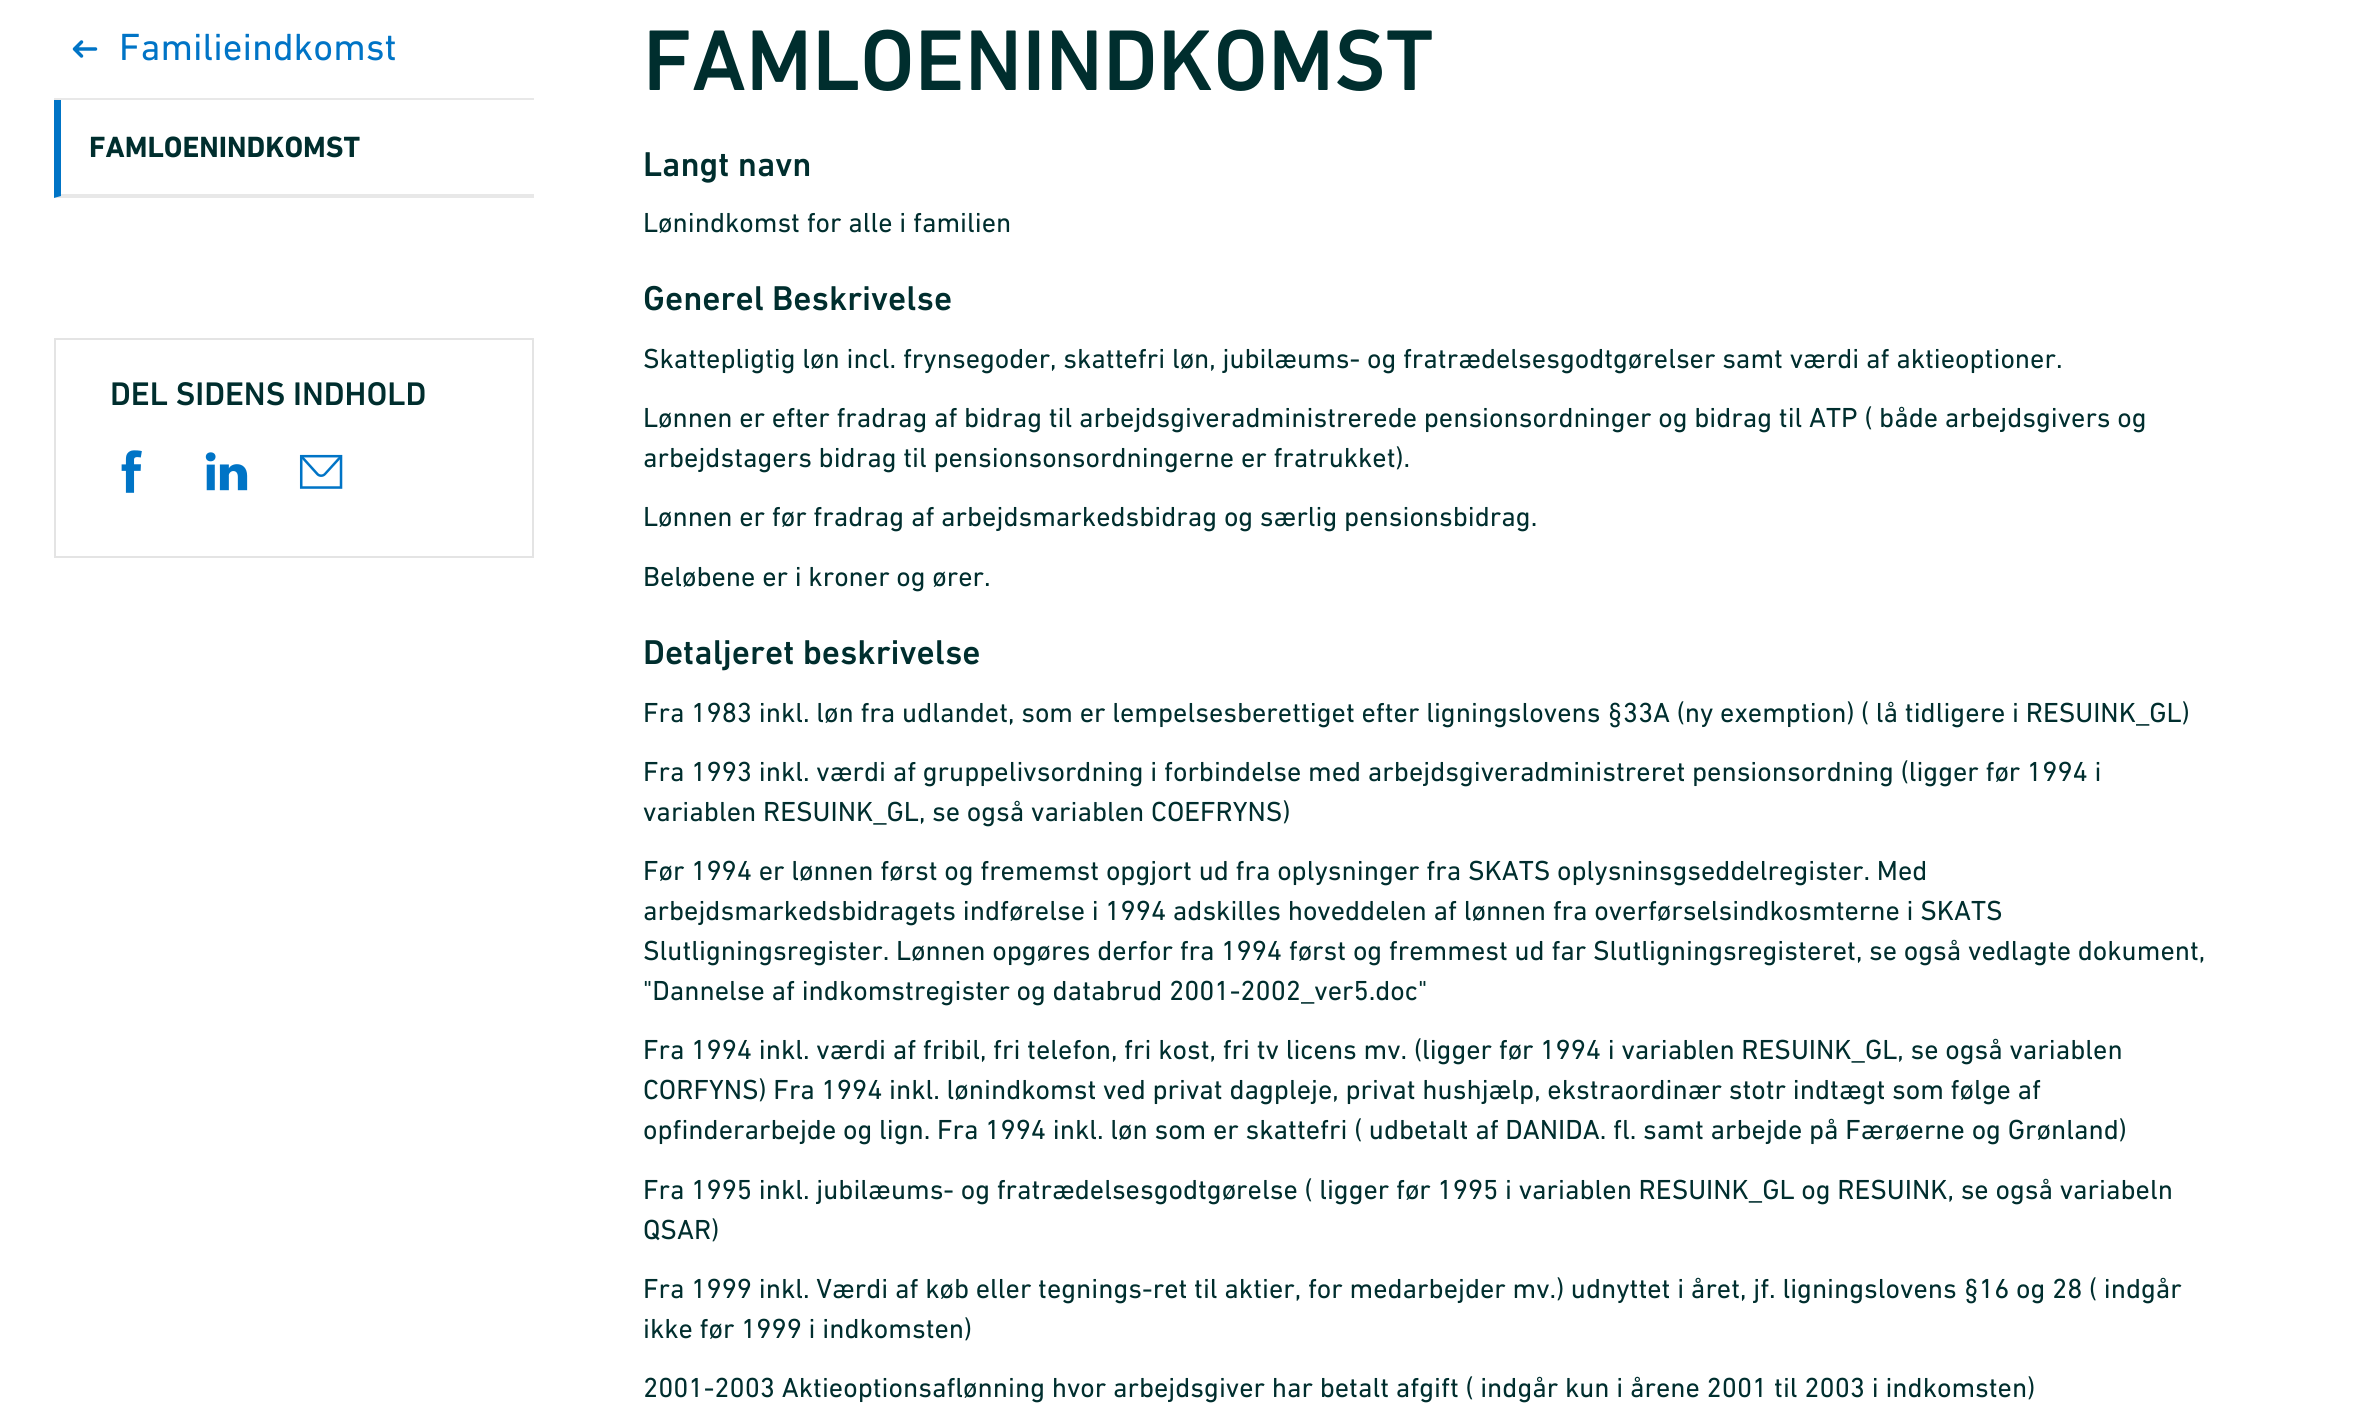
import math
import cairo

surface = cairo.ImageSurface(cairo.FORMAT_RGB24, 2353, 1416)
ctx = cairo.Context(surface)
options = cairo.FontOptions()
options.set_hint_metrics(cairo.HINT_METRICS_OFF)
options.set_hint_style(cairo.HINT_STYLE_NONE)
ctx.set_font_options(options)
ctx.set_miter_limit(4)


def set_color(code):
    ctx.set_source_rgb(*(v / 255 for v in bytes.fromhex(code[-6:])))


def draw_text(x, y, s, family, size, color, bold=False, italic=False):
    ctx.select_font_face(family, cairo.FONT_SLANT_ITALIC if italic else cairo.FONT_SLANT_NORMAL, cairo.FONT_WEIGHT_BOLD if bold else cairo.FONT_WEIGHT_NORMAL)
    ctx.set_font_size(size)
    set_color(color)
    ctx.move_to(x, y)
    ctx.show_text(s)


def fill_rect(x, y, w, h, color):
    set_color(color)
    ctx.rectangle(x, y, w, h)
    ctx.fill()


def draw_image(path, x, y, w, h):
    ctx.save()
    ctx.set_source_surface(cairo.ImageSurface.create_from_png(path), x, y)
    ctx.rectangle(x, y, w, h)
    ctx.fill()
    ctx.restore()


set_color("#ffffff")
ctx.paint()
fill_rect(54, 98, 480, 2, "#e8e8e8")
ctx.new_path()
ctx.move_to(81.5, 56)
ctx.line_to(74.5, 49)
ctx.line_to(81.5, 42)
ctx.move_to(74.5, 49)
ctx.line_to(95.5, 49)
set_color("#0074c6")
ctx.set_line_width(3.5)
ctx.set_line_cap(cairo.LINE_CAP_ROUND)
ctx.set_line_join(cairo.LINE_JOIN_ROUND)
ctx.stroke()
draw_text(119, 60, "Familieindkomst", "DIN Next", 38.5, "#0074c6")
set_color("#e8e8e8")
ctx.new_path()
ctx.move_to(534, 198)
ctx.line_to(54, 198)
ctx.line_to(61, 196)
ctx.line_to(534, 196)
ctx.close_path()
ctx.fill()
set_color("#0074c6")
ctx.new_path()
ctx.move_to(54, 198)
ctx.line_to(54, 100)
ctx.line_to(61, 100)
ctx.line_to(61, 196)
ctx.close_path()
ctx.fill()
fill_rect(61, 194, 473, 2, "#e8e8e8")
draw_text(89, 157, "FAMLOENINDKOMST", "DIN Next", 29.75, "#002e2e", bold=True)
ctx.rectangle(55, 339, 478, 218)
set_color("#e4e4e4")
ctx.set_line_width(2)
ctx.set_line_cap(cairo.LINE_CAP_BUTT)
ctx.set_line_join(cairo.LINE_JOIN_MITER)
ctx.stroke()
draw_text(110, 405, "DEL SIDENS INDHOLD", "DIN Next Medium", 33.25, "#002e2e")
draw_image("assets/img1.png", 121, 450, 21, 43)
draw_image("assets/img2.png", 205, 452, 43, 39)
draw_image("assets/img3.png", 299, 454, 44, 35)
draw_text(643, 90, "FAMLOENINDKOMST", "DIN Next Medium", 87.5, "#002e2e")
draw_text(643, 176, "Langt navn", "DIN Next Medium", 35, "#002e2e")
draw_text(643, 232, "Lønindkomst for alle i familien", "DIN Next", 28, "#002e2e")
draw_text(643, 310, "Generel Beskrivelse", "DIN Next Medium", 35, "#002e2e")
draw_text(643, 368, "Skattepligtig løn incl. frynsegoder, skattefri løn, jubilæums- og fratrædelsesgodtgørelser samt værdi af aktieoptioner.", "DIN Next", 28, "#002e2e")
draw_text(643, 427, "Lønnen er efter fradrag af bidrag til arbejdsgiveradministrerede pensionsordninger og bidrag til ATP ( både arbejdsgivers og", "DIN Next", 28, "#002e2e")
draw_text(643, 467, "arbejdstagers bidrag til pensionsonsordningerne er fratrukket).", "DIN Next", 28, "#002e2e")
draw_text(643, 526, "Lønnen er før fradrag af arbejdsmarkedsbidrag og særlig pensionsbidrag.", "DIN Next", 28, "#002e2e")
draw_text(643, 586, "Beløbene er i kroner og ører.", "DIN Next", 28, "#002e2e")
draw_text(643, 664, "Detaljeret beskrivelse", "DIN Next Medium", 35, "#002e2e")
draw_text(643, 722, "Fra 1983 inkl. løn fra udlandet, som er lempelsesberettiget efter ligningslovens §33A (ny exemption) ( lå tidligere i RESUINK_GL)", "DIN Next", 28, "#002e2e")
draw_text(643, 781, "Fra 1993 inkl. værdi af gruppelivsordning i forbindelse med arbejdsgiveradministreret pensionsordning (ligger før 1994 i", "DIN Next", 28, "#002e2e")
draw_text(643, 821, "variablen RESUINK_GL, se også variablen COEFRYNS)", "DIN Next", 28, "#002e2e")
draw_text(643, 880, "Før 1994 er lønnen først og frememst opgjort ud fra oplysninger fra SKATS oplysninsgseddelregister. Med", "DIN Next", 28, "#002e2e")
draw_text(643, 920, "arbejdsmarkedsbidragets indførelse i 1994 adskilles hoveddelen af lønnen fra overførselsindkosmterne i SKATS", "DIN Next", 28, "#002e2e")
draw_text(643, 960, "Slutligningsregister. Lønnen opgøres derfor fra 1994 først og fremmest ud far Slutligningsregisteret, se også vedlagte dokument,", "DIN Next", 28, "#002e2e")
draw_text(643, 1000, "\"Dannelse af indkomstregister og databrud 2001-2002_ver5.doc\"", "DIN Next", 28, "#002e2e")
draw_text(643, 1059, "Fra 1994 inkl. værdi af fribil, fri telefon, fri kost, fri tv licens mv. (ligger før 1994 i variablen RESUINK_GL, se også variablen", "DIN Next", 28, "#002e2e")
draw_text(643, 1099, "CORFYNS) Fra 1994 inkl. lønindkomst ved privat dagpleje, privat hushjælp, ekstraordinær stotr indtægt som følge af", "DIN Next", 28, "#002e2e")
draw_text(643, 1139, "opfinderarbejde og lign. Fra 1994 inkl. løn som er skattefri ( udbetalt af DANIDA. fl. samt arbejde på Færøerne og Grønland)", "DIN Next", 28, "#002e2e")
draw_text(643, 1199, "Fra 1995 inkl. jubilæums- og fratrædelsesgodtgørelse ( ligger før 1995 i variablen RESUINK_GL og RESUINK, se også variabeln", "DIN Next", 28, "#002e2e")
draw_text(643, 1239, "QSAR)", "DIN Next", 28, "#002e2e")
draw_text(643, 1298, "Fra 1999 inkl. Værdi af køb eller tegnings-ret til aktier, for medarbejder mv.) udnyttet i året, jf. ligningslovens §16 og 28 ( indgår", "DIN Next", 28, "#002e2e")
draw_text(643, 1338, "ikke før 1999 i indkomsten)", "DIN Next", 28, "#002e2e")
draw_text(643, 1397, "2001-2003 Aktieoptionsaflønning hvor arbejdsgiver har betalt afgift ( indgår kun i årene 2001 til 2003 i indkomsten)", "DIN Next", 28, "#002e2e")
surface.write_to_png("output.png")
